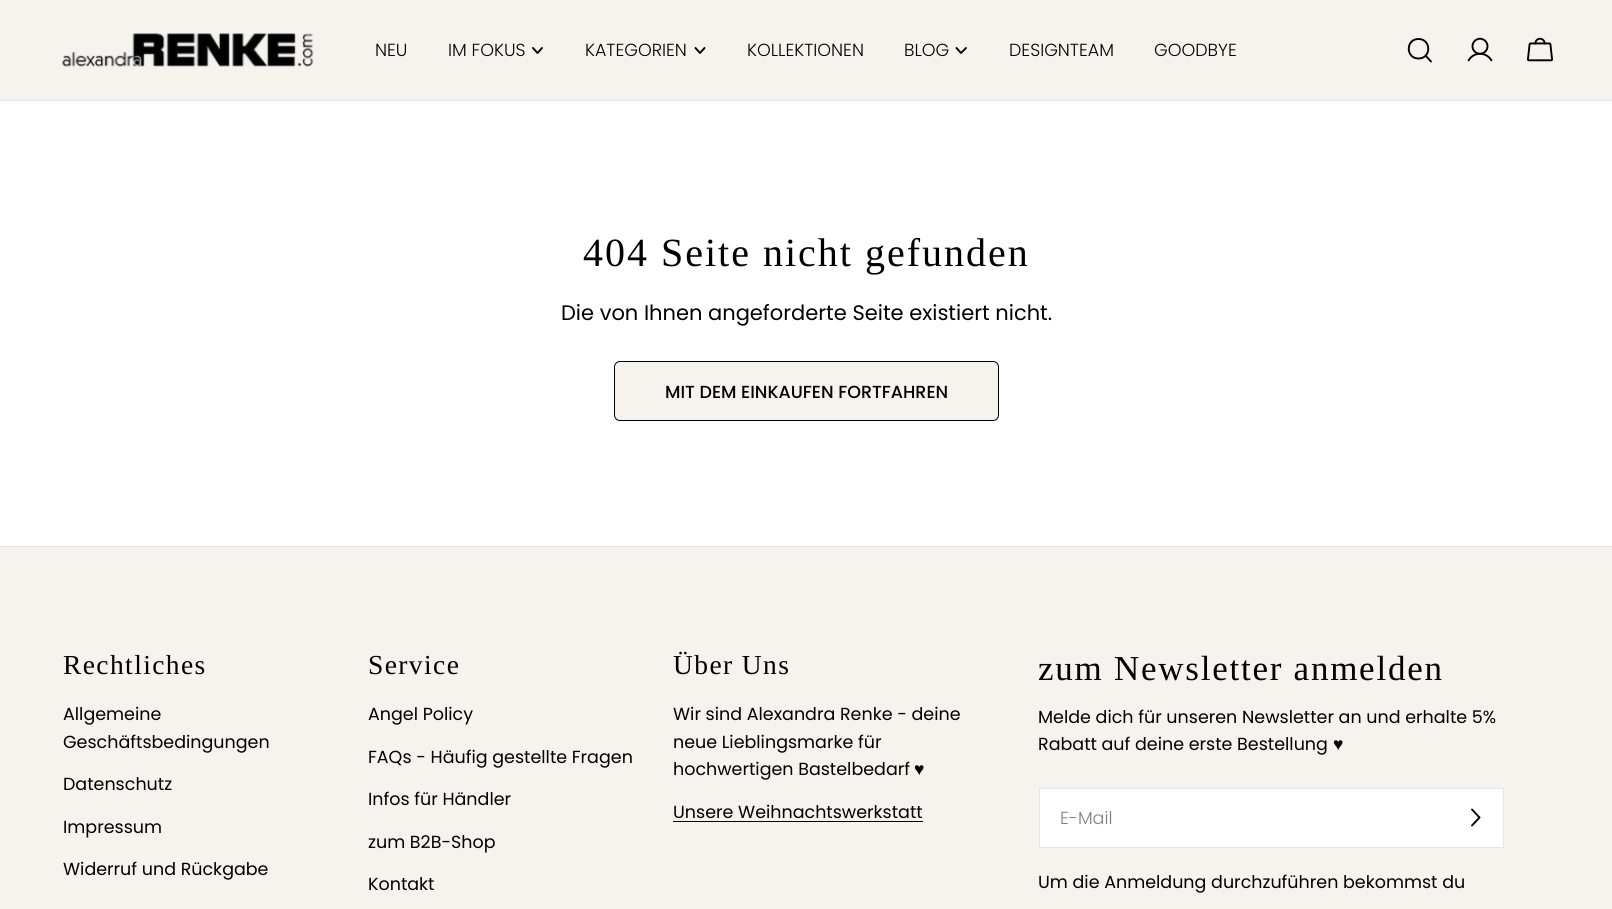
import math
import cairo

surface = cairo.ImageSurface(cairo.FORMAT_RGB24, 1612, 909)
ctx = cairo.Context(surface)
options = cairo.FontOptions()
options.set_hint_metrics(cairo.HINT_METRICS_OFF)
options.set_hint_style(cairo.HINT_STYLE_NONE)
ctx.set_font_options(options)
ctx.set_miter_limit(4)


def set_color(code):
    ctx.set_source_rgb(*(v / 255 for v in bytes.fromhex(code[-6:])))


def draw_text(x, y, s, family, size, color, bold=False, italic=False):
    ctx.select_font_face(family, cairo.FONT_SLANT_ITALIC if italic else cairo.FONT_SLANT_NORMAL, cairo.FONT_WEIGHT_BOLD if bold else cairo.FONT_WEIGHT_NORMAL)
    ctx.set_font_size(size)
    set_color(color)
    ctx.move_to(x, y)
    ctx.show_text(s)


def draw_spaced(x, y, s, letter, word):
    ctx.move_to(x, y)
    for ch in s:
        ctx.show_text(ch)
        ctx.rel_move_to(letter + word * (ch == ' '), 0)


def fill_rect(x, y, w, h, color):
    set_color(color)
    ctx.rectangle(x, y, w, h)
    ctx.fill()


def rounded_rect(x, y, w, h, r):
    ctx.new_sub_path()
    for i, (u, v) in enumerate([(x + w - r, y + h - r), (x + r, y + h - r), (x + r, y + r), (x + w - r, y + r)]):
        ctx.arc(u, v, r, i * math.pi / 2, (i + 1) * math.pi / 2)
    ctx.close_path()


def draw_image(path, x, y, w, h):
    ctx.save()
    ctx.set_source_surface(cairo.ImageSurface.create_from_png(path), x, y)
    ctx.rectangle(x, y, w, h)
    ctx.fill()
    ctx.restore()


set_color("#ffffff")
ctx.paint()
fill_rect(0, 100, 1612, 1, "#e6e6e6")
fill_rect(0, 0, 1612, 100, "#f6f2ee")
draw_image("assets/img1.png", 62, 33, 252, 34)
draw_text(375, 56, "NEU", "Poppins Light", 17.5, "#000000")
draw_text(448, 56, "IM FOKUS", "Poppins Light", 17.5, "#000000")
ctx.new_path()
ctx.move_to(542, 48)
ctx.line_to(537.5, 53)
ctx.line_to(533, 48)
ctx.set_line_width(1.9)
ctx.set_line_cap(cairo.LINE_CAP_ROUND)
ctx.set_line_join(cairo.LINE_JOIN_ROUND)
ctx.stroke()
draw_text(585, 56, "KATEGORIEN", "Poppins Light", 17.5, "#000000")
ctx.new_path()
ctx.move_to(704.5, 48)
ctx.line_to(700, 53)
ctx.line_to(695.5, 48)
ctx.stroke()
draw_text(747, 56, "KOLLEKTIONEN", "Poppins Light", 17.5, "#000000")
draw_text(904, 56, "BLOG", "Poppins Light", 17.5, "#000000")
ctx.new_path()
ctx.move_to(966, 48)
ctx.line_to(961, 53)
ctx.line_to(956.5, 48)
ctx.stroke()
draw_text(1009, 56, "DESIGNTEAM", "Poppins Light", 17.5, "#000000")
draw_text(1154, 56, "GOODBYE", "Poppins Light", 17.5, "#000000")
ctx.new_path()
ctx.move_to(1418.5, 58.5)
ctx.curve_to(1431.5, 58.5, 1431.5, 39, 1418.5, 39)
ctx.curve_to(1405.5, 39, 1405.5, 58.5, 1418.5, 58.5)
ctx.close_path()
ctx.move_to(1425.5, 55.5)
ctx.line_to(1431, 61.5)
ctx.stroke()
draw_image("assets/img2.png", 1467, 37, 26, 25)
draw_image("assets/img3.png", 1527, 37, 26, 25)
ctx.select_font_face("Liberation Serif")
ctx.set_font_size(40)
draw_spaced(583, 266, "404 Seite nicht gefunden", 2, 0)
draw_text(561, 320, "Die von Ihnen angeforderte Seite existiert nicht.", "Poppins", 21, "#000000")
set_color("#f6f2ee")
rounded_rect(614.5, 361.5, 384, 59, 5.5)
ctx.fill_preserve()
set_color("#000000")
ctx.set_line_width(1)
ctx.set_line_cap(cairo.LINE_CAP_BUTT)
ctx.set_line_join(cairo.LINE_JOIN_MITER)
ctx.stroke()
draw_text(665, 398, "MIT DEM EINKAUFEN FORTFAHREN", "Poppins Medium", 17.5, "#000000")
fill_rect(0, 547, 1612, 362, "#f6f2ee")
fill_rect(0, 546, 1612, 1, "#e6e6e6")
ctx.select_font_face("Liberation Serif")
ctx.set_font_size(27.5)
set_color("#000000")
draw_spaced(63, 674, "Rechtliches", 1.4, 0)
draw_text(63, 720, "Allgemeine", "Poppins", 17.5, "#000000")
draw_text(63, 748, "Geschäftsbedingungen", "Poppins", 17.5, "#000000")
draw_text(63, 790, "Datenschutz", "Poppins", 17.5, "#000000")
draw_text(63, 833, "Impressum", "Poppins", 17.5, "#000000")
draw_text(63, 875, "Widerruf und Rückgabe", "Poppins", 17.5, "#000000")
ctx.select_font_face("Liberation Serif")
ctx.set_font_size(27.5)
draw_spaced(368, 674, "Service", 1.4, 0)
draw_text(368, 720, "Angel Policy", "Poppins", 17.5, "#000000")
draw_text(368, 763, "FAQs - Häufig gestellte Fragen", "Poppins", 17.5, "#000000")
draw_text(368, 805, "Infos für Händler", "Poppins", 17.5, "#000000")
draw_text(368, 848, "zum B2B-Shop", "Poppins", 17.5, "#000000")
draw_text(368, 890, "Kontakt", "Poppins", 17.5, "#000000")
ctx.select_font_face("Liberation Serif")
ctx.set_font_size(27.5)
draw_spaced(673, 674, "Über Uns", 1.4, 0)
draw_text(673, 720, "Wir sind Alexandra Renke - deine", "Poppins", 17.5, "#000000")
draw_text(673, 748, "neue Lieblingsmarke für", "Poppins", 17.5, "#000000")
draw_text(673, 775, "hochwertigen Bastelbedarf", "Poppins", 17.5, "#000000")
draw_text(914, 775, "♥", "Liberation Sans", 17.5, "#000000")
draw_text(673, 818, "Unsere Weihnachtswerkstatt", "Poppins", 17.5, "#000000")
fill_rect(673, 821, 250, 1, "#000000")
ctx.select_font_face("Liberation Serif")
ctx.set_font_size(35)
draw_spaced(1038, 680, "zum Newsletter anmelden", 1.75, 0)
draw_text(1038, 723, "Melde dich für unseren Newsletter an und erhalte 5%", "Poppins", 17.5, "#000000")
draw_text(1038, 750, "Rabatt auf deine erste Bestellung", "Poppins", 17.5, "#000000")
draw_text(1333, 750, "♥", "Liberation Sans", 17.5, "#000000")
set_color("#ffffff")
ctx.rectangle(1039.5, 788.5, 464, 59)
ctx.fill_preserve()
set_color("#e6e6e6")
ctx.stroke()
draw_text(1060, 824, "E-Mail", "Poppins Light", 17.5, "#808080")
ctx.new_path()
ctx.move_to(1472, 809.5)
ctx.line_to(1479.5, 817.5)
ctx.line_to(1472, 825.5)
set_color("#000000")
ctx.set_line_width(1.9)
ctx.set_line_cap(cairo.LINE_CAP_ROUND)
ctx.set_line_join(cairo.LINE_JOIN_ROUND)
ctx.stroke()
draw_text(1038, 888, "Um die Anmeldung durchzuführen bekommst du", "Poppins", 17.5, "#000000")
surface.write_to_png("output.png")
